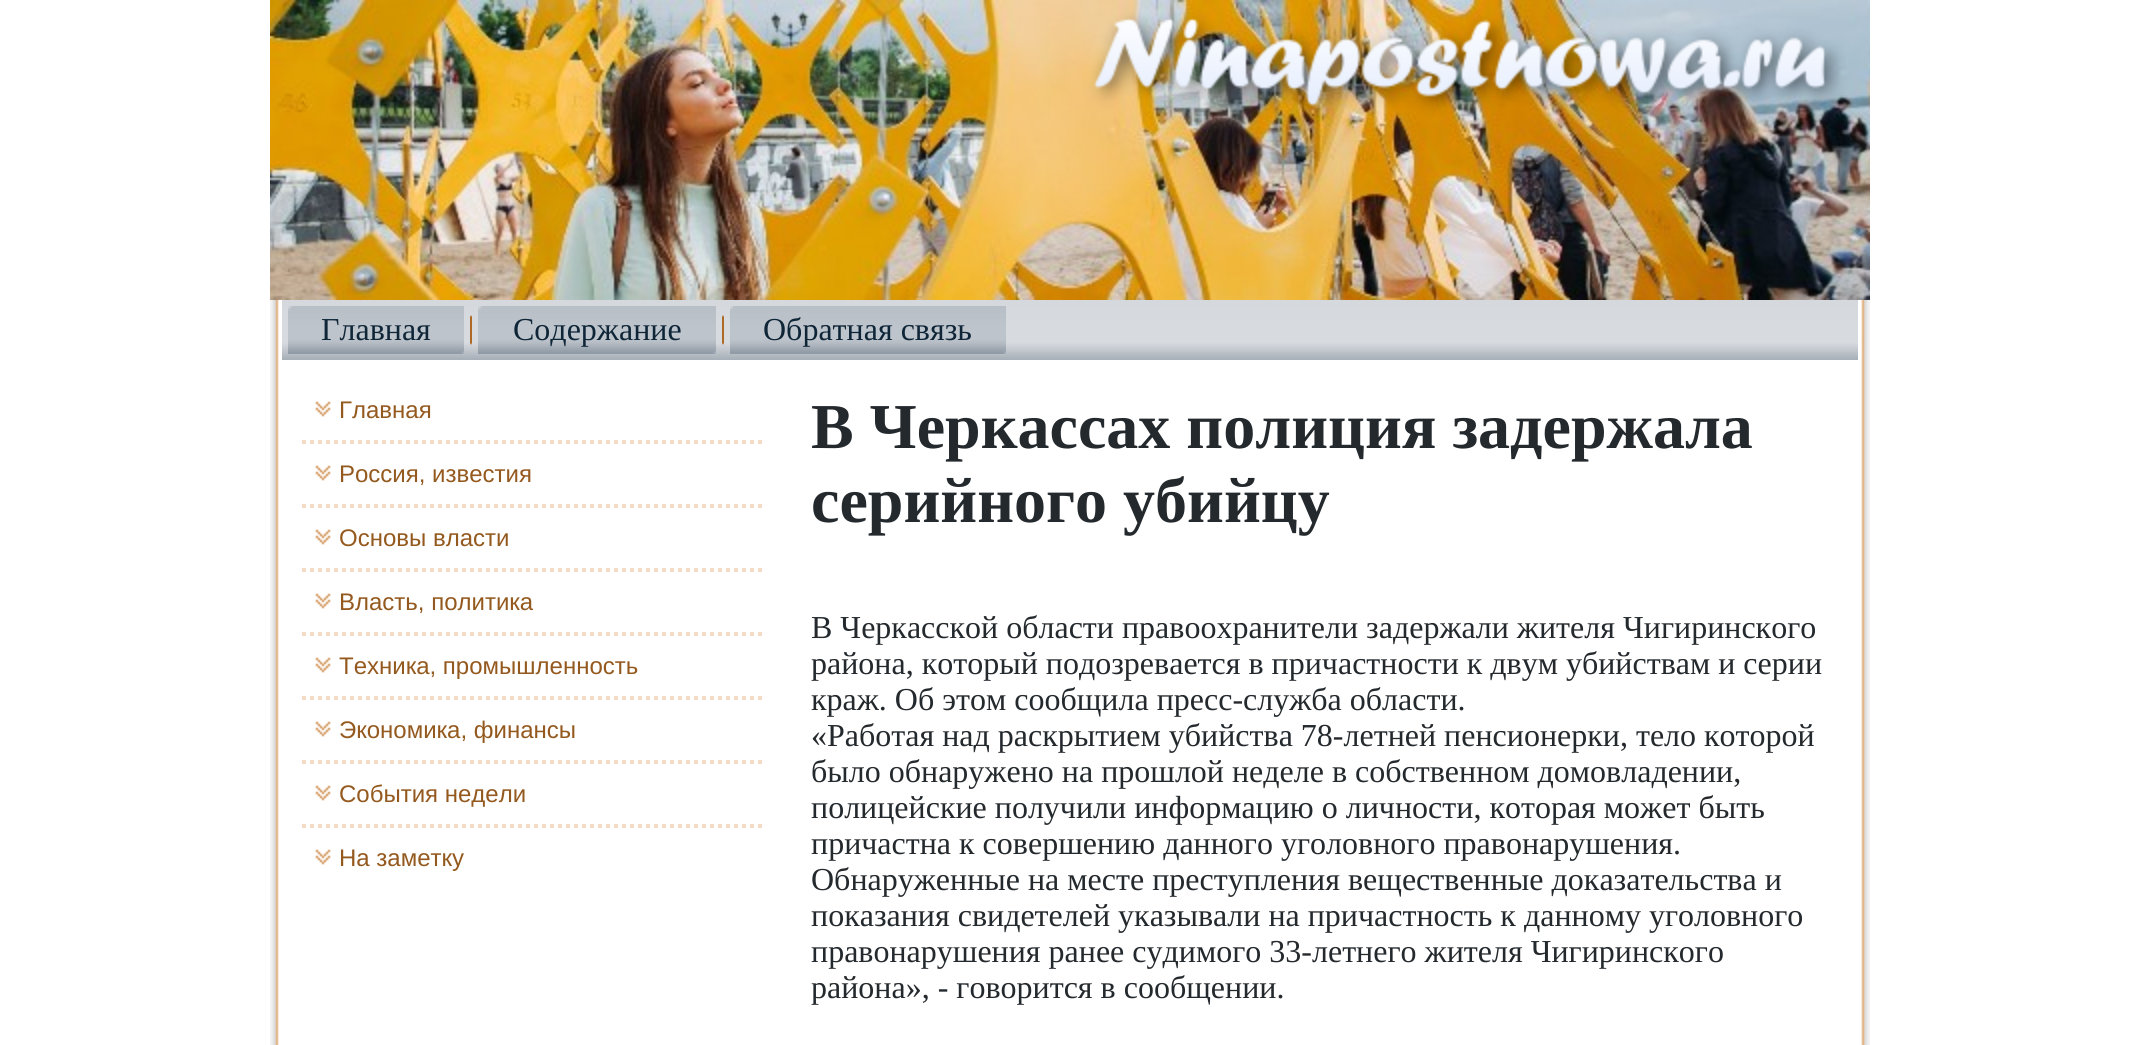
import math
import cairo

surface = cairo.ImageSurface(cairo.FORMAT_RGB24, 2138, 1045)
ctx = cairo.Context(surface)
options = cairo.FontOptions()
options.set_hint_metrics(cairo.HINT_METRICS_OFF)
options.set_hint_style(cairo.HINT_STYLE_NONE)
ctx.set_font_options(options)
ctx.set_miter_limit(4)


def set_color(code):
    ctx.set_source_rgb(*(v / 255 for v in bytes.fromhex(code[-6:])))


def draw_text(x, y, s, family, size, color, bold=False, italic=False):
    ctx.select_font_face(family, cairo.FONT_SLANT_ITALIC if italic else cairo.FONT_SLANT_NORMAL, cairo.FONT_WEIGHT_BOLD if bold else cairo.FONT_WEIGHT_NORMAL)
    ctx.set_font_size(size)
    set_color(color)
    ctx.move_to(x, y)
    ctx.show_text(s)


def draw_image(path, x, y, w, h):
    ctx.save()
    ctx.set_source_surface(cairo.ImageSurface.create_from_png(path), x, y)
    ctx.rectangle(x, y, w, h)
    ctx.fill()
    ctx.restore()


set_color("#ffffff")
ctx.paint()
draw_image("assets/img1.png", 270, 0, 1600, 300)
draw_image("assets/img2.png", 270, 300, 9, 745)
draw_image("assets/img3.png", 282, 300, 1550, 60)
draw_image("assets/img4.png", 1832, 300, 26, 60)
draw_image("assets/img5.png", 288, 306, 172, 48)
draw_image("assets/img6.png", 460, 306, 4, 48)
draw_text(321, 340, "Главная", "Liberation Serif", 32, "#0f2638")
draw_image("assets/img7.png", 470, 315, 2, 30)
draw_image("assets/img8.png", 478, 306, 234, 48)
draw_image("assets/img6.png", 712, 306, 4, 48)
draw_text(513, 340, "Содержание", "Liberation Serif", 32, "#0f2638")
draw_image("assets/img7.png", 722, 315, 2, 30)
draw_image("assets/img9.png", 730, 306, 272, 48)
draw_image("assets/img6.png", 1002, 306, 4, 48)
draw_text(763, 340, "Обратная связь", "Liberation Serif", 32, "#0f2638")
draw_image("assets/img10.png", 1861, 300, 9, 745)
draw_image("assets/img11.png", 315, 401, 16, 16)
draw_text(339, 418, "Главная", "Liberation Sans", 24, "#94591e")
ctx.new_path()
ctx.move_to(302, 442)
ctx.line_to(762, 442)
set_color("#f3dbc4")
ctx.set_line_width(4)
ctx.set_dash([4, 4])
ctx.stroke()
draw_image("assets/img11.png", 315, 465, 16, 16)
draw_text(339, 482, "Россия, известия", "Liberation Sans", 24, "#94591e")
ctx.new_path()
ctx.move_to(302, 506)
ctx.line_to(762, 506)
set_color("#f3dbc4")
ctx.stroke()
draw_image("assets/img11.png", 315, 529, 16, 16)
draw_text(339, 546, "Основы власти", "Liberation Sans", 24, "#94591e")
ctx.new_path()
ctx.move_to(302, 570)
ctx.line_to(762, 570)
set_color("#f3dbc4")
ctx.stroke()
draw_image("assets/img11.png", 315, 593, 16, 16)
draw_text(339, 610, "Власть, политика", "Liberation Sans", 24, "#94591e")
ctx.new_path()
ctx.move_to(302, 634)
ctx.line_to(762, 634)
set_color("#f3dbc4")
ctx.stroke()
draw_image("assets/img11.png", 315, 657, 16, 16)
draw_text(339, 674, "Техника, промышленность", "Liberation Sans", 24, "#94591e")
ctx.new_path()
ctx.move_to(302, 698)
ctx.line_to(762, 698)
set_color("#f3dbc4")
ctx.stroke()
draw_image("assets/img11.png", 315, 721, 16, 16)
draw_text(339, 738, "Экономика, финансы", "Liberation Sans", 24, "#94591e")
ctx.new_path()
ctx.move_to(302, 762)
ctx.line_to(762, 762)
set_color("#f3dbc4")
ctx.stroke()
draw_image("assets/img11.png", 315, 785, 16, 16)
draw_text(339, 802, "События недели", "Liberation Sans", 24, "#94591e")
ctx.new_path()
ctx.move_to(302, 826)
ctx.line_to(762, 826)
set_color("#f3dbc4")
ctx.stroke()
draw_image("assets/img11.png", 315, 849, 16, 16)
draw_text(339, 866, "На заметку", "Liberation Sans", 24, "#94591e")
draw_text(811, 448, "В Черкассах полиция задержала", "Liberation Serif", 64, "#24292d", bold=True)
draw_text(811, 522, "серийного убийцу", "Liberation Serif", 64, "#24292d", bold=True)
draw_text(811, 638, "В Черкасской области правоохранители задержали жителя Чигиринского", "Liberation Serif", 32, "#24292d")
draw_text(811, 674, "района, который подозревается в причастности к двум убийствам и серии", "Liberation Serif", 32, "#24292d")
draw_text(811, 710, "краж. Об этом сообщила пресс-служба области.", "Liberation Serif", 32, "#24292d")
draw_text(811, 746, "«Работая над раскрытием убийства 78-летней пенсионерки, тело которой", "Liberation Serif", 32, "#24292d")
draw_text(811, 782, "было обнаружено на прошлой неделе в собственном домовладении,", "Liberation Serif", 32, "#24292d")
draw_text(811, 818, "полицейские получили информацию о личности, которая может быть", "Liberation Serif", 32, "#24292d")
draw_text(811, 854, "причастна к совершению данного уголовного правонарушения.", "Liberation Serif", 32, "#24292d")
draw_text(811, 890, "Обнаруженные на месте преступления вещественные доказательства и", "Liberation Serif", 32, "#24292d")
draw_text(811, 926, "показания свидетелей указывали на причастность к данному уголовного", "Liberation Serif", 32, "#24292d")
draw_text(811, 962, "правонарушения ранее судимого 33-летнего жителя Чигиринского", "Liberation Serif", 32, "#24292d")
draw_text(811, 998, "района», - говорится в сообщении.", "Liberation Serif", 32, "#24292d")
surface.write_to_png("output.png")
